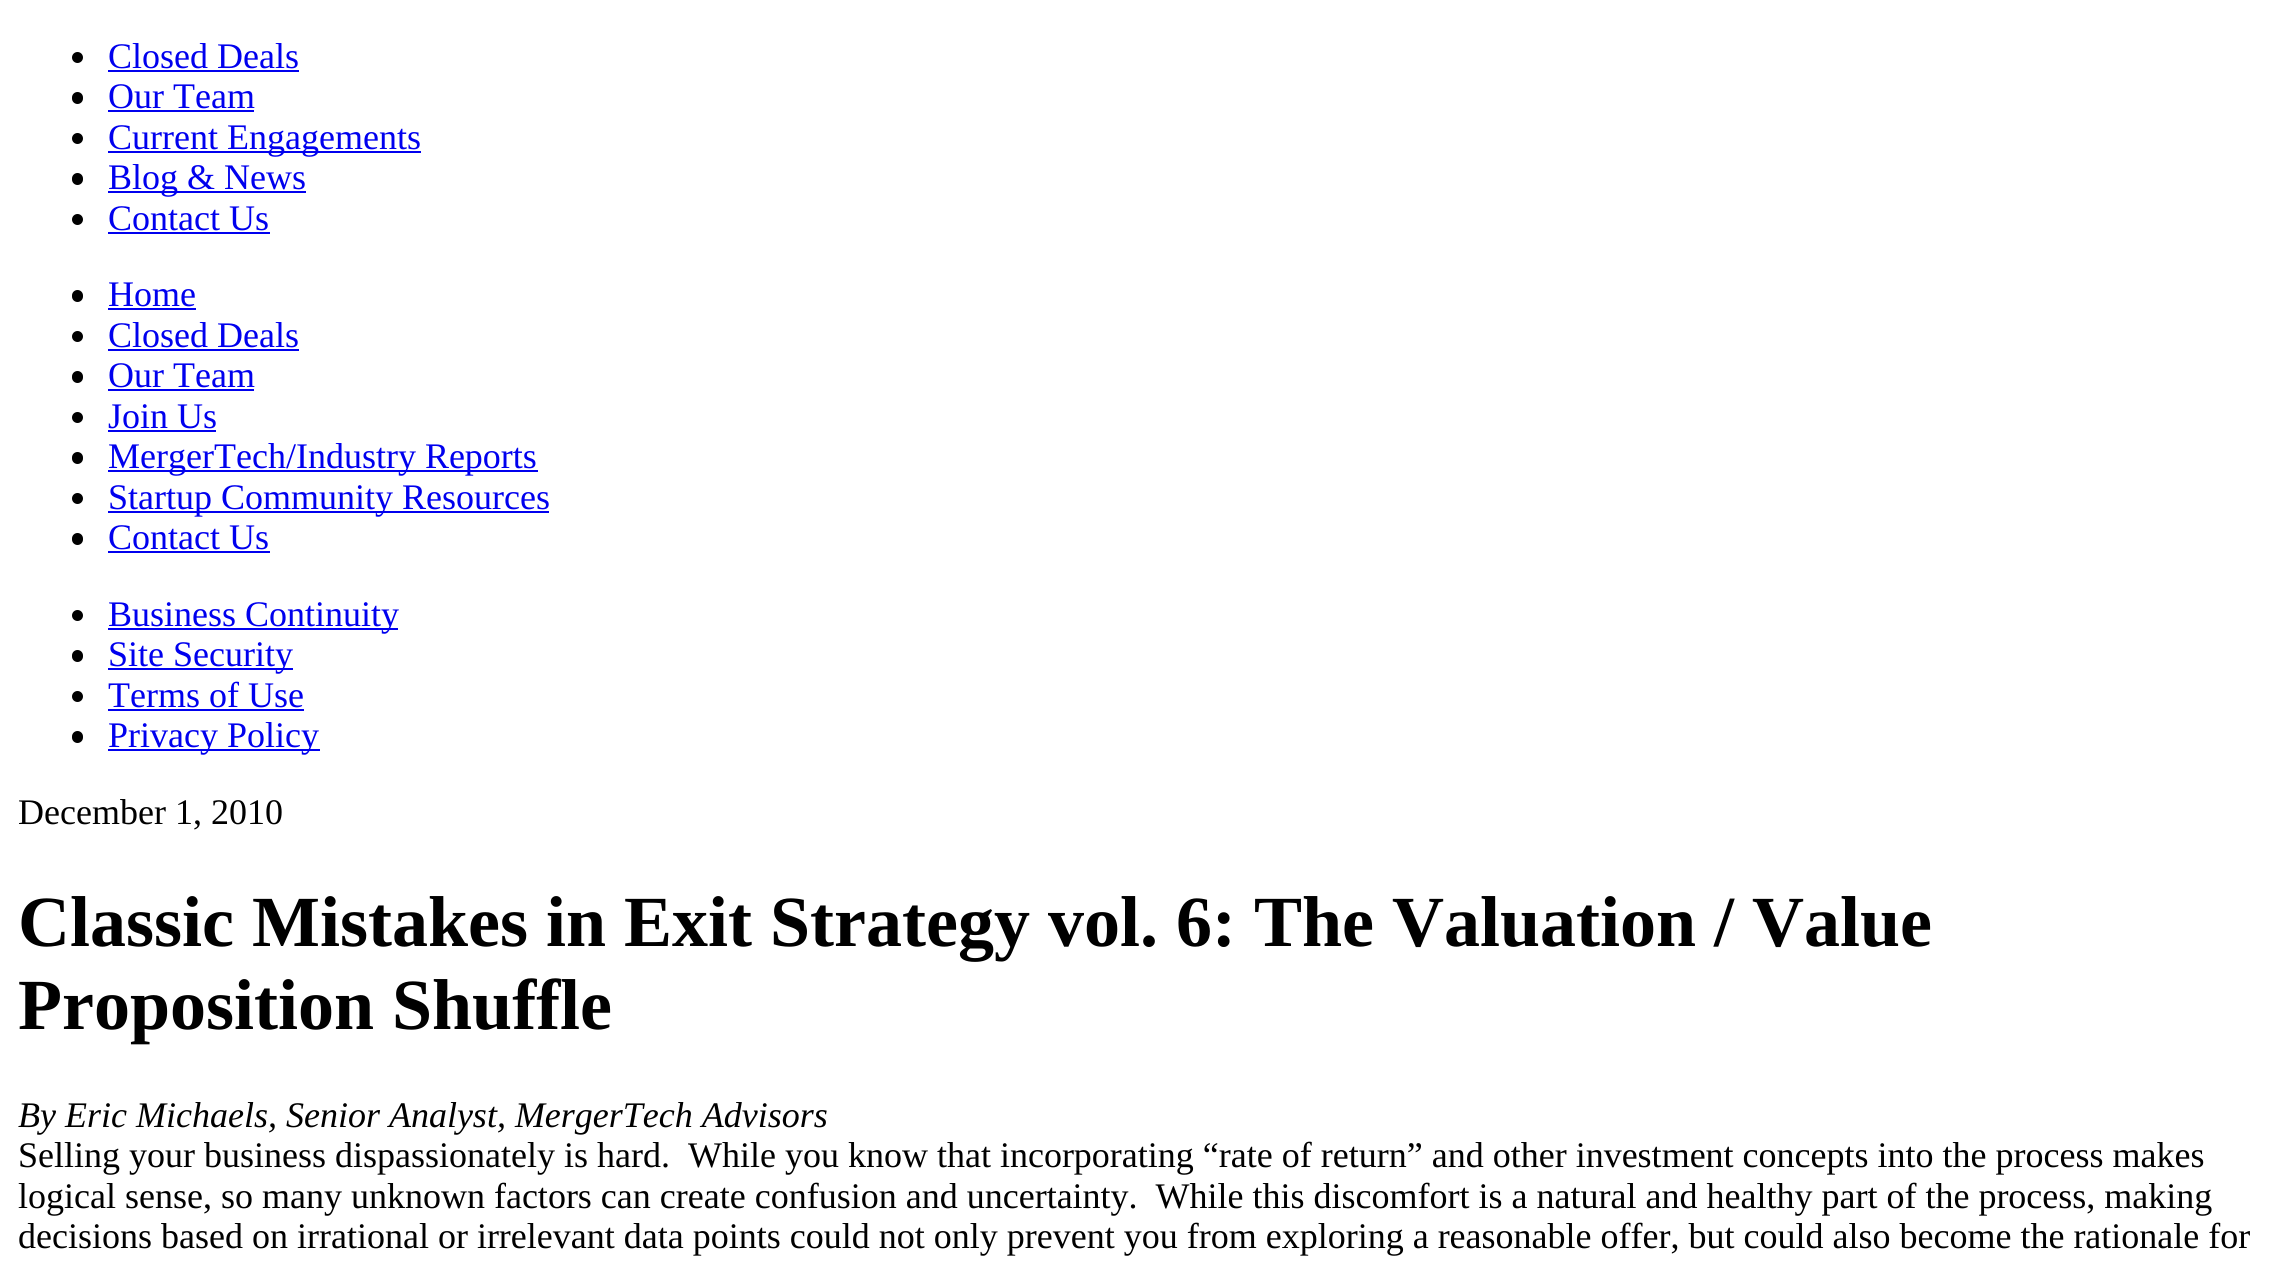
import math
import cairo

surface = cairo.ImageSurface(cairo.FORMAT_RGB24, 2279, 1267)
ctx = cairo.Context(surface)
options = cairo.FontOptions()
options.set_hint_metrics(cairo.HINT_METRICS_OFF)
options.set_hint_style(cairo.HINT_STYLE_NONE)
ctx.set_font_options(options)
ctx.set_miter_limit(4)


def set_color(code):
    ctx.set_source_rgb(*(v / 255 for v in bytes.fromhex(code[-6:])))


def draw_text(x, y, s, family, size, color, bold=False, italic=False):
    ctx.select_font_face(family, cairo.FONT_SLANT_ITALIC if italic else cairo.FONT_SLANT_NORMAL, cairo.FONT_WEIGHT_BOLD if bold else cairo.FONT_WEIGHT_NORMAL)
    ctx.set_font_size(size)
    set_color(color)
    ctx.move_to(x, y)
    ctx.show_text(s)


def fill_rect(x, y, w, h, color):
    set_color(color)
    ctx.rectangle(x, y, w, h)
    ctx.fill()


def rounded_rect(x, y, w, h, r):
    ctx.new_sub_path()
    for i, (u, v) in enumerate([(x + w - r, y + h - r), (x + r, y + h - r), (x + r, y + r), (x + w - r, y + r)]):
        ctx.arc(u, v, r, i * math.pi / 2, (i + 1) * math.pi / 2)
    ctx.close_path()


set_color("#ffffff")
ctx.paint()
set_color("#000000")
ctx.arc(77.5, 57.5, 5.5, 0, 2 * math.pi)
ctx.fill()
draw_text(108, 68, "Closed Deals", "Liberation Serif", 36, "#0000ee")
fill_rect(108, 70, 191, 2, "#0000ee")
set_color("#000000")
rounded_rect(72, 92, 11, 12, 5.5)
ctx.fill()
draw_text(108, 108, "Our Team", "Liberation Serif", 36, "#0000ee")
fill_rect(108, 110, 146, 2, "#0000ee")
set_color("#000000")
ctx.new_path()
ctx.arc(77.5, 138.5, 5.5, 0, 2 * math.pi)
ctx.fill()
fill_rect(108, 151, 313, 2, "#0000ee")
draw_text(108, 149, "Current Engagements", "Liberation Serif", 36, "#0000ee")
set_color("#000000")
rounded_rect(72, 173, 11, 12, 5.5)
ctx.fill()
fill_rect(108, 191, 198, 2, "#0000ee")
draw_text(108, 189, "Blog & News", "Liberation Serif", 36, "#0000ee")
set_color("#000000")
ctx.new_path()
ctx.arc(77.5, 219.5, 5.5, 0, 2 * math.pi)
ctx.fill()
draw_text(108, 230, "Contact Us", "Liberation Serif", 36, "#0000ee")
fill_rect(108, 232, 162, 2, "#0000ee")
set_color("#000000")
rounded_rect(72, 290, 11, 12, 5.5)
ctx.fill()
draw_text(108, 306, "Home", "Liberation Serif", 36, "#0000ee")
fill_rect(108, 308, 88, 2, "#0000ee")
set_color("#000000")
ctx.new_path()
ctx.arc(77.5, 336.5, 5.5, 0, 2 * math.pi)
ctx.fill()
draw_text(108, 347, "Closed Deals", "Liberation Serif", 36, "#0000ee")
fill_rect(108, 349, 191, 2, "#0000ee")
set_color("#000000")
rounded_rect(72, 371, 11, 12, 5.5)
ctx.fill()
draw_text(108, 387, "Our Team", "Liberation Serif", 36, "#0000ee")
fill_rect(108, 389, 146, 2, "#0000ee")
set_color("#000000")
ctx.new_path()
ctx.arc(77.5, 417.5, 5.5, 0, 2 * math.pi)
ctx.fill()
draw_text(108, 428, "Join Us", "Liberation Serif", 36, "#0000ee")
fill_rect(108, 430, 108, 2, "#0000ee")
set_color("#000000")
rounded_rect(72, 452, 11, 12, 5.5)
ctx.fill()
fill_rect(108, 470, 430, 2, "#0000ee")
draw_text(108, 468, "MergerTech/Industry Reports", "Liberation Serif", 36, "#0000ee")
set_color("#000000")
ctx.new_path()
ctx.arc(77.5, 498.5, 5.5, 0, 2 * math.pi)
ctx.fill()
fill_rect(108, 511, 441, 2, "#0000ee")
draw_text(108, 509, "Startup Community Resources", "Liberation Serif", 36, "#0000ee")
set_color("#000000")
rounded_rect(72, 533, 11, 12, 5.5)
ctx.fill()
draw_text(108, 549, "Contact Us", "Liberation Serif", 36, "#0000ee")
fill_rect(108, 551, 162, 2, "#0000ee")
set_color("#000000")
ctx.new_path()
ctx.arc(77.5, 615.5, 5.5, 0, 2 * math.pi)
ctx.fill()
fill_rect(108, 628, 290, 2, "#0000ee")
draw_text(108, 626, "Business Continuity", "Liberation Serif", 36, "#0000ee")
set_color("#000000")
rounded_rect(72, 650, 11, 12, 5.5)
ctx.fill()
fill_rect(108, 668, 185, 2, "#0000ee")
draw_text(108, 666, "Site Security", "Liberation Serif", 36, "#0000ee")
set_color("#000000")
ctx.new_path()
ctx.arc(77.5, 696.5, 5.5, 0, 2 * math.pi)
ctx.fill()
draw_text(108, 707, "Terms of Use", "Liberation Serif", 36, "#0000ee")
fill_rect(108, 709, 196, 2, "#0000ee")
set_color("#000000")
rounded_rect(72, 731, 11, 12, 5.5)
ctx.fill()
fill_rect(108, 749, 212, 2, "#0000ee")
draw_text(108, 747, "Privacy Policy", "Liberation Serif", 36, "#0000ee")
draw_text(18, 824, "December 1, 2010", "Liberation Serif", 36, "#000000")
draw_text(18, 946, "Classic Mistakes in Exit Strategy vol. 6: The Valuation / Value", "Liberation Serif", 72, "#000000", bold=True)
draw_text(18, 1029, "Proposition Shuffle", "Liberation Serif", 72, "#000000", bold=True)
draw_text(18, 1127, "By Eric Michaels, Senior Analyst, MergerTech Advisors", "Liberation Serif", 36, "#000000", italic=True)
draw_text(18, 1167, "Selling your business dispassionately is hard.  While you know that incorporating “rate of return” and other investment concepts into the process makes", "Liberation Serif", 36, "#000000")
draw_text(18, 1208, "logical sense, so many unknown factors can create confusion and uncertainty.  While this discomfort is a natural and healthy part of the process, making", "Liberation Serif", 36, "#000000")
draw_text(18, 1248, "decisions based on irrational or irrelevant data points could not only prevent you from exploring a reasonable offer, but could also become the rationale for", "Liberation Serif", 36, "#000000")
surface.write_to_png("output.png")
